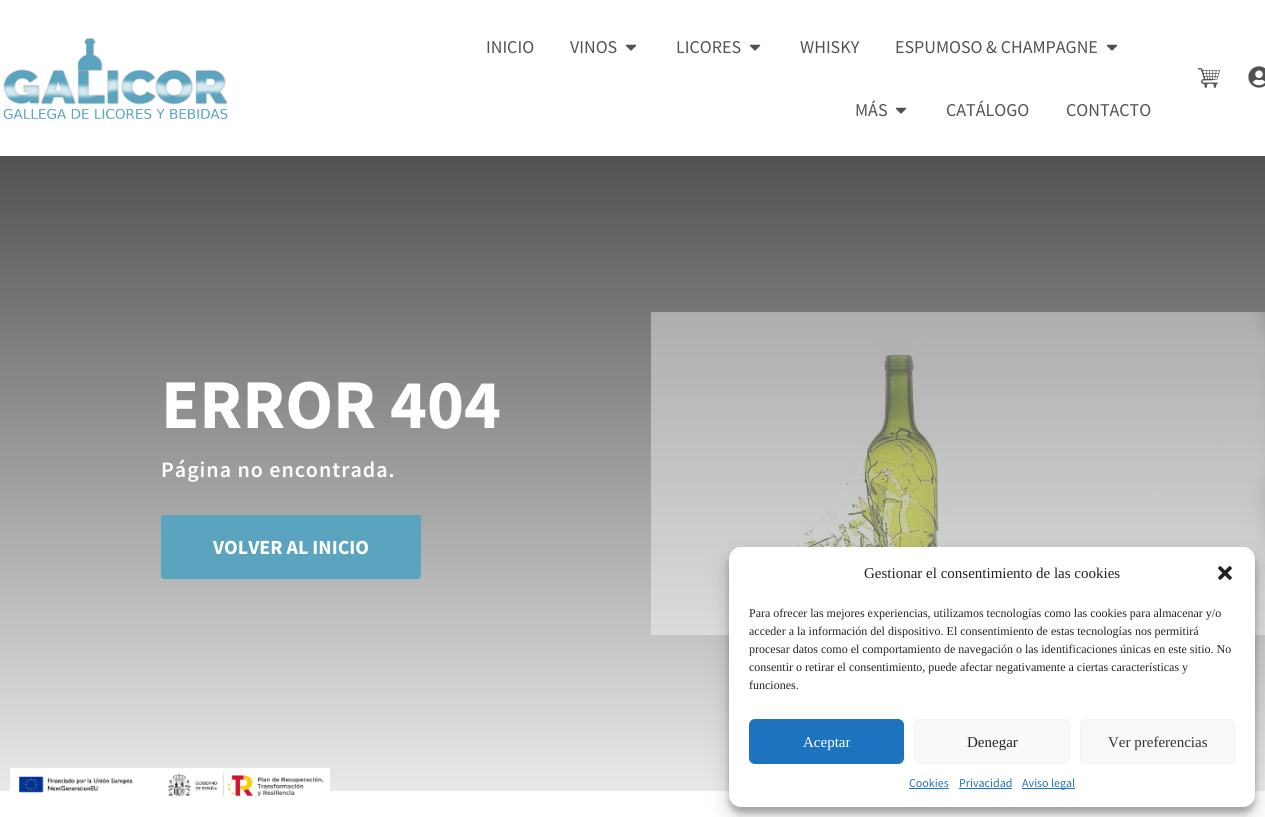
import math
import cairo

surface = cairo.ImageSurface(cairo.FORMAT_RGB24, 1265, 817)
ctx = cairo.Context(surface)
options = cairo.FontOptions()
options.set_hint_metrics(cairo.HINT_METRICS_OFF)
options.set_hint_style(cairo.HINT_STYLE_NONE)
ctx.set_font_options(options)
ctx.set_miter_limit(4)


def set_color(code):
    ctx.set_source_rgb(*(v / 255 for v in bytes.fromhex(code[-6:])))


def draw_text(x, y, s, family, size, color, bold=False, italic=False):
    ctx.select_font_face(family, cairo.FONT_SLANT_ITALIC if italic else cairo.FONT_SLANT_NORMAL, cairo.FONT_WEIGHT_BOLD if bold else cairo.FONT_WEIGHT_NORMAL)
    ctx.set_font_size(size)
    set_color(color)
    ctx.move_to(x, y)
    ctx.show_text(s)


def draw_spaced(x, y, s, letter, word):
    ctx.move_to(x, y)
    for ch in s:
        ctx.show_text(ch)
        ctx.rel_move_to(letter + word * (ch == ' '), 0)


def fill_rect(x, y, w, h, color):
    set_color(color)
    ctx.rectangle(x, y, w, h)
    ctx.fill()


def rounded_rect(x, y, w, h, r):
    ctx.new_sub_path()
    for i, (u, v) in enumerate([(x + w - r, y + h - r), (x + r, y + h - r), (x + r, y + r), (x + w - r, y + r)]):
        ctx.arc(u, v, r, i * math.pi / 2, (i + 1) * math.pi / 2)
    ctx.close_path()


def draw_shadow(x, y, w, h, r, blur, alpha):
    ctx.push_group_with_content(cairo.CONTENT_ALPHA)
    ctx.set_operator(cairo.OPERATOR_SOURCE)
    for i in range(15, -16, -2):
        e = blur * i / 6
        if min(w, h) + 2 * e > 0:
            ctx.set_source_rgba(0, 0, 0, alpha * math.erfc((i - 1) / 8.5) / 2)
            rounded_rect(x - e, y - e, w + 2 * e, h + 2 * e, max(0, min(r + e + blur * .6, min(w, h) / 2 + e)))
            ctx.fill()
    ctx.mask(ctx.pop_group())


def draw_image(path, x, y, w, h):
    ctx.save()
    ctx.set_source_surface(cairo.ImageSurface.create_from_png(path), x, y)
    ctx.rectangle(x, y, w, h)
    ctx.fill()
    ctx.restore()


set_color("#ffffff")
ctx.paint()
draw_image("assets/img1.png", 3, 37, 225, 82)
draw_text(486, 53, "INICIO", "Source Sans Pro", 18, "#525252")
draw_text(570, 53, "VINOS", "Source Sans Pro", 18, "#525252")
draw_image("assets/img2.png", 625, 44, 12, 7)
draw_text(676, 53, "LICORES", "Source Sans Pro", 18, "#525252")
draw_image("assets/img2.png", 749, 44, 12, 7)
draw_text(800, 53, "WHISKY", "Source Sans Pro", 18, "#525252")
draw_text(895, 53, "ESPUMOSO & CHAMPAGNE", "Source Sans Pro", 18, "#525252")
draw_image("assets/img2.png", 1106, 44, 12, 7)
draw_text(855, 116, "MÁS", "Source Sans Pro", 18, "#525252")
draw_image("assets/img2.png", 895, 107, 12, 7)
draw_text(946, 116, "CATÁLOGO", "Source Sans Pro", 18, "#525252")
draw_text(1066, 116, "CONTACTO", "Source Sans Pro", 18, "#525252")
draw_image("assets/img3.png", 1198, 68, 22, 20)
draw_image("assets/img4.png", 1248, 66, 17, 22)
gradient = cairo.LinearGradient(633, 156, 633, 791)
gradient.add_color_stop_rgba(0, 0.322, 0.322, 0.322, 1)
gradient.add_color_stop_rgba(1, 0.914, 0.914, 0.914, 1)
ctx.set_source(gradient)
ctx.rectangle(0, 156, 1265, 635)
ctx.fill()
draw_text(161, 428, "ERROR 404", "Source Sans Pro", 70, "#ffffff", bold=True)
ctx.select_font_face("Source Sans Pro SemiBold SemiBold")
ctx.set_font_size(22)
draw_spaced(161, 477, "Página no encontrada.", 1, 0)
set_color("#5aa4bf")
rounded_rect(162, 516, 258, 62, 2)
ctx.fill_preserve()
ctx.stroke()
draw_text(213, 554, "VOLVER AL INICIO", "Source Sans Pro", 20, "#ffffff", bold=True)
draw_image("assets/img5.png", 651, 312, 614, 323)
draw_image("assets/img6.png", 10, 768, 320, 28)
set_color("#000000")
draw_shadow(729, 553, 526, 260, 12, 3, 0.23)
draw_shadow(729, 557, 526, 260, 12, 10, 0.19)
set_color("#ffffff")
rounded_rect(729, 547, 526, 260, 12)
ctx.fill()
draw_text(864, 578, "Gestionar el consentimiento de las cookies", "Liberation Serif", 15, "#222222")
draw_image("assets/img7.png", 1218, 566, 14, 14)
draw_text(749, 617, "Para ofrecer las mejores experiencias, utilizamos tecnologías como las cookies para almacenar y/o", "Liberation Serif", 12, "#222222")
draw_text(749, 635, "acceder a la información del dispositivo. El consentimiento de estas tecnologías nos permitirá", "Liberation Serif", 12, "#222222")
draw_text(749, 653, "procesar datos como el comportamiento de navegación o las identificaciones únicas en este sitio. No", "Liberation Serif", 12, "#222222")
draw_text(749, 671, "consentir o retirar el consentimiento, puede afectar negativamente a ciertas características y", "Liberation Serif", 12, "#222222")
draw_text(749, 689, "funciones.", "Liberation Serif", 12, "#222222")
set_color("#1e73be")
rounded_rect(749.5, 719.5, 154, 44, 5.5)
ctx.fill_preserve()
ctx.set_line_width(1)
ctx.stroke()
draw_text(803, 747, "Aceptar", "Liberation Serif", 15, "#ffffff")
set_color("#f9f9f9")
rounded_rect(914.5, 719.5, 155, 44, 5.5)
ctx.fill_preserve()
set_color("#f2f2f2")
ctx.stroke()
draw_text(967, 747, "Denegar", "Liberation Serif", 15, "#222222")
set_color("#f9f9f9")
rounded_rect(1080.5, 719.5, 154, 44, 5.5)
ctx.fill_preserve()
set_color("#f2f2f2")
ctx.stroke()
draw_text(1108, 747, "Ver preferencias", "Liberation Serif", 15, "#333333")
draw_text(909, 787, "Cookies", "Source Sans Pro", 12, "#1e73be")
fill_rect(909, 788, 40, 1, "#1e73be")
draw_text(959, 787, "Privacidad", "Source Sans Pro", 12, "#1e73be")
fill_rect(959, 788, 53, 1, "#1e73be")
fill_rect(1022, 788, 53, 1, "#1e73be")
draw_text(1022, 787, "Aviso legal", "Source Sans Pro", 12, "#1e73be")
surface.write_to_png("output.png")
